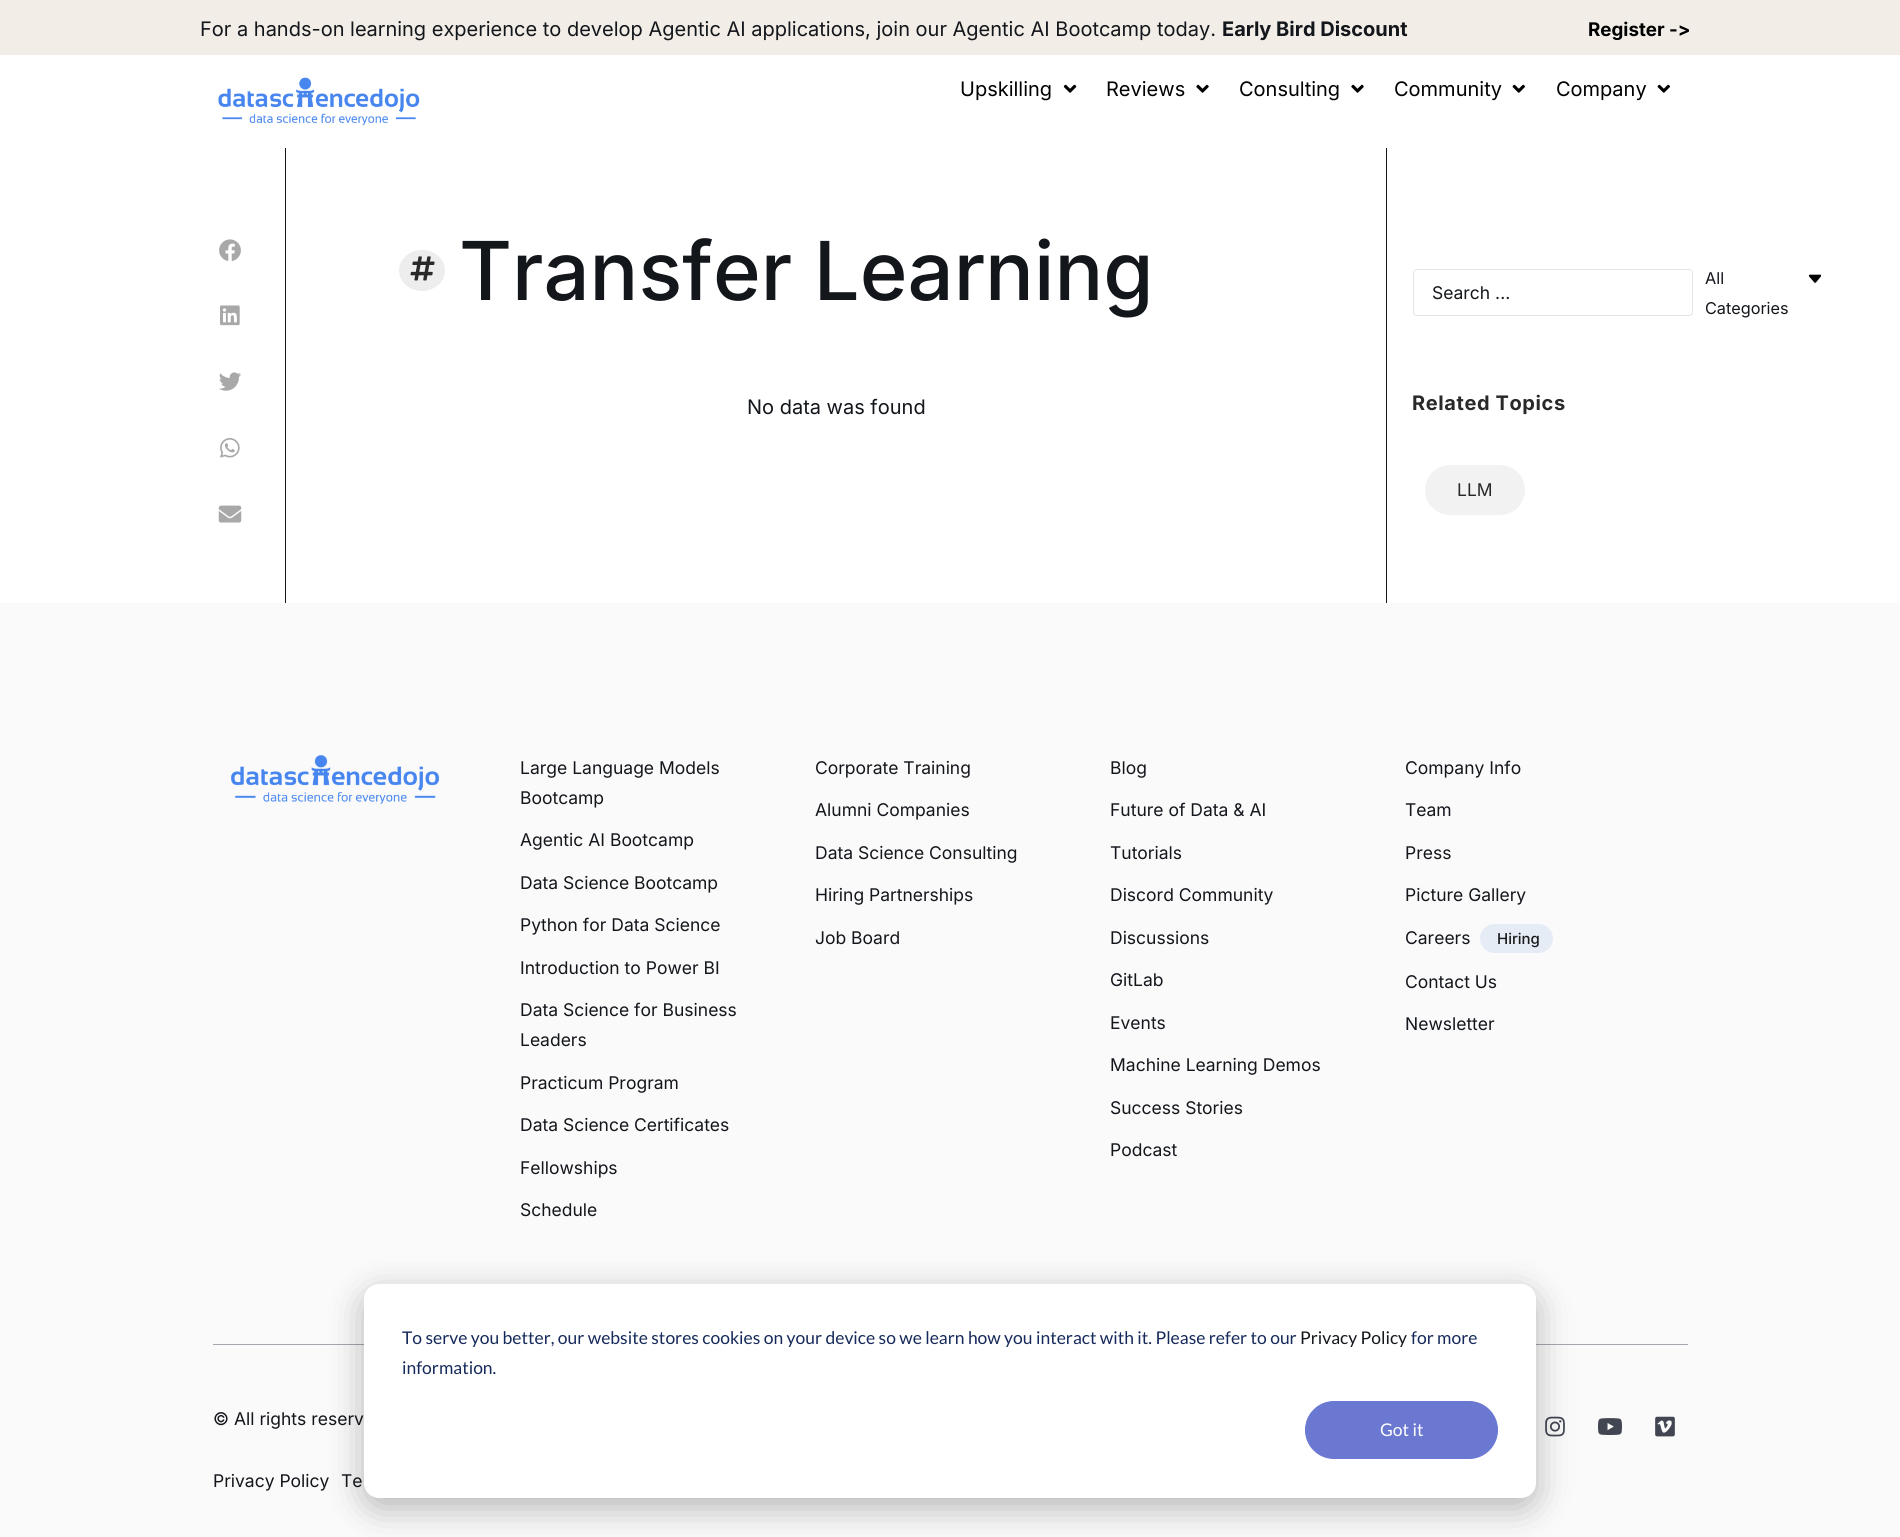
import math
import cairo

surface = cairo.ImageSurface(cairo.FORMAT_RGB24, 1900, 1537)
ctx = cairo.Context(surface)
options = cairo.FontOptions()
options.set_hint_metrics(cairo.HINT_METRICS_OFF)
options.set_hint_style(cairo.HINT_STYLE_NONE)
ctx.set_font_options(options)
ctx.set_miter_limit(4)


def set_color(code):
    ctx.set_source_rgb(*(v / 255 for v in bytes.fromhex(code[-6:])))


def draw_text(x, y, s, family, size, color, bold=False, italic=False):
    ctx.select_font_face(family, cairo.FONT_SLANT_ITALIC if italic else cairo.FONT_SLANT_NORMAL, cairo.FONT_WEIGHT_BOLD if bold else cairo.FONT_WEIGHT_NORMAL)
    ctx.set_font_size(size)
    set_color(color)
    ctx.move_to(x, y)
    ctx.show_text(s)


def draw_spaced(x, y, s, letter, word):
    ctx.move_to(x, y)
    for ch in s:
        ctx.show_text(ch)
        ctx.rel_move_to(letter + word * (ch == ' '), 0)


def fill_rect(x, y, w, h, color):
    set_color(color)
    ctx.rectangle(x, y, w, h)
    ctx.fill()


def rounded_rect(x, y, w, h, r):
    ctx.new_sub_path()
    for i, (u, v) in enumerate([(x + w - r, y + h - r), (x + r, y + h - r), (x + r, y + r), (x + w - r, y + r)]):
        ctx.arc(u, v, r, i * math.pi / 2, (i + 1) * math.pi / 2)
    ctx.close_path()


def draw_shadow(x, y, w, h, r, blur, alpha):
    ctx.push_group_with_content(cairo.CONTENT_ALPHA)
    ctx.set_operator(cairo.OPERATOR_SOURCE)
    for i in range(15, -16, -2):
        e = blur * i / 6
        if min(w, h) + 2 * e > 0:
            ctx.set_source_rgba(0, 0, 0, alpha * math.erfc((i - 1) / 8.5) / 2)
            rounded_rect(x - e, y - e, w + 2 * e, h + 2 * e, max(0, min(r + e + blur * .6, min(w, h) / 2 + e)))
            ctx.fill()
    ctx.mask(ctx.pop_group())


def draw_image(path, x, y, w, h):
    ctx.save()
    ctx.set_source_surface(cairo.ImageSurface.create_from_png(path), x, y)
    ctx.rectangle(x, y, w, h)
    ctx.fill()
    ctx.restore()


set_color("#ffffff")
ctx.paint()
fill_rect(0, 0, 1900, 55, "#f2ede7")
draw_text(200, 36, "For a hands-on learning experience to develop Agentic AI applications, join our Agentic AI Bootcamp today.", "Inter", 20, "#13161b")
draw_text(1222, 36, "Early Bird Discount", "Inter", 20, "#13161b", bold=True)
draw_text(1588, 36, "Register ->", "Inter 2", 18.75, "#000000", bold=True)
draw_image("assets/img1.png", 218, 77, 202, 49)
draw_text(960, 96, "Upskilling", "Inter", 20, "#000000")
draw_image("assets/img2.png", 1063, 84, 14, 9)
draw_text(1106, 96, "Reviews", "Inter", 20, "#000000")
draw_image("assets/img3.png", 1196, 84, 13, 9)
draw_text(1239, 96, "Consulting", "Inter", 20, "#000000")
draw_image("assets/img3.png", 1351, 84, 13, 9)
draw_text(1394, 96, "Community", "Inter", 20, "#000000")
draw_image("assets/img4.png", 1512, 84, 13, 9)
draw_text(1556, 96, "Company", "Inter", 20, "#000000")
draw_image("assets/img4.png", 1657, 84, 13, 9)
draw_image("assets/img5.png", 219, 239, 22, 22)
draw_image("assets/img6.png", 220, 305, 20, 21)
draw_image("assets/img7.png", 219, 372, 22, 19)
draw_image("assets/img8.png", 220, 438, 20, 20)
draw_image("assets/img9.png", 218, 505, 24, 18)
fill_rect(1386, 148, 1, 455, "#13161b")
fill_rect(285, 148, 1, 455, "#13161b")
set_color("#ededed")
ctx.new_path()
ctx.move_to(422, 250)
ctx.curve_to(434.5, 250, 445, 259, 445, 270.5)
ctx.curve_to(445, 282, 434.5, 291, 422, 291)
ctx.curve_to(409.5, 291, 399, 282, 399, 270.5)
ctx.curve_to(399, 259, 409.5, 250, 422, 250)
ctx.close_path()
ctx.fill()
draw_image("assets/img10.png", 410, 256, 25, 25)
draw_text(459, 300, "Transfer Learning", "Inter Medium", 81.25, "#13161b")
draw_text(747, 414, "No data was found", "Inter", 20, "#13161b")
rounded_rect(1413.5, 269.5, 279, 46, 3.5)
set_color("#e1e5eb")
ctx.set_line_width(1)
ctx.stroke()
draw_text(1432, 299, "Search ...", "Inter", 17.5, "#13161b")
draw_text(1705, 284, "All", "Inter", 16.25, "#13161b")
draw_text(1705, 314, "Categories", "Inter", 16.25, "#13161b")
draw_image("assets/img11.png", 1809, 274, 12, 9)
ctx.select_font_face("Inter", cairo.FONT_SLANT_NORMAL, cairo.FONT_WEIGHT_BOLD)
ctx.set_font_size(20)
set_color("#292929")
draw_spaced(1412, 410, "Related Topics", 0.6, 0)
set_color("#f2f2f2")
rounded_rect(1425, 465, 100, 50, 25)
ctx.fill()
draw_text(1457, 496, "LLM", "Inter", 17.5, "#292929")
fill_rect(0, 603, 1900, 934, "#fafafa")
draw_image("assets/img12.png", 231, 755, 209, 49)
draw_text(520, 774, "Large Language Models", "Inter", 17.5, "#13161b")
draw_text(520, 804, "Bootcamp", "Inter", 17.5, "#13161b")
draw_text(520, 846, "Agentic AI Bootcamp", "Inter", 17.5, "#13161b")
draw_text(520, 889, "Data Science Bootcamp", "Inter", 17.5, "#13161b")
draw_text(520, 931, "Python for Data Science", "Inter", 17.5, "#13161b")
draw_text(520, 974, "Introduction to Power BI", "Inter", 17.5, "#13161b")
draw_text(520, 1016, "Data Science for Business", "Inter", 17.5, "#13161b")
draw_text(520, 1046, "Leaders", "Inter", 17.5, "#13161b")
draw_text(520, 1089, "Practicum Program", "Inter", 17.5, "#13161b")
draw_text(520, 1131, "Data Science Certificates", "Inter", 17.5, "#13161b")
draw_text(520, 1174, "Fellowships", "Inter", 17.5, "#13161b")
draw_text(520, 1216, "Schedule", "Inter", 17.5, "#13161b")
draw_text(815, 774, "Corporate Training", "Inter", 17.5, "#13161b")
draw_text(815, 816, "Alumni Companies", "Inter", 17.5, "#13161b")
draw_text(815, 859, "Data Science Consulting", "Inter", 17.5, "#13161b")
draw_text(815, 901, "Hiring Partnerships", "Inter", 17.5, "#13161b")
draw_text(815, 944, "Job Board", "Inter", 17.5, "#13161b")
draw_text(1110, 774, "Blog", "Inter", 17.5, "#13161b")
draw_text(1110, 816, "Future of Data & AI", "Inter", 17.5, "#13161b")
draw_text(1110, 859, "Tutorials", "Inter", 17.5, "#13161b")
draw_text(1110, 901, "Discord Community", "Inter", 17.5, "#13161b")
draw_text(1110, 944, "Discussions", "Inter", 17.5, "#13161b")
draw_text(1110, 986, "GitLab", "Inter", 17.5, "#13161b")
draw_text(1110, 1029, "Events", "Inter", 17.5, "#13161b")
draw_text(1110, 1071, "Machine Learning Demos", "Inter", 17.5, "#13161b")
draw_text(1110, 1114, "Success Stories", "Inter", 17.5, "#13161b")
draw_text(1110, 1156, "Podcast", "Inter", 17.5, "#13161b")
draw_text(1405, 774, "Company Info", "Inter", 17.5, "#13161b")
draw_text(1405, 816, "Team", "Inter", 17.5, "#13161b")
draw_text(1405, 859, "Press", "Inter", 17.5, "#13161b")
draw_text(1405, 901, "Picture Gallery", "Inter", 17.5, "#13161b")
draw_text(1405, 944, "Careers", "Inter", 17.5, "#13161b")
set_color("#e5ecf6")
rounded_rect(1480, 924, 73, 29, 14.5)
ctx.fill()
draw_text(1497, 944, "Hiring", "Inter Medium", 15, "#1a1a1a")
draw_text(1405, 988, "Contact Us", "Inter", 17.5, "#13161b")
draw_text(1405, 1030, "Newsletter", "Inter", 17.5, "#13161b")
fill_rect(213, 1344, 1475, 1, "#a4a7ae")
draw_text(213, 1425, "© All rights reserv", "Inter", 17.5, "#13161b")
draw_text(213, 1487, "Privacy Policy", "Inter", 17.5, "#13161b")
draw_text(341, 1487, "Te", "Inter", 17.5, "#13161b")
draw_image("assets/img13.png", 1545, 1416, 20, 21)
draw_image("assets/img14.png", 1598, 1418, 24, 17)
draw_image("assets/img15.png", 1655, 1416, 20, 21)
set_color("#000000")
draw_shadow(364, 1294, 1172, 214, 15, 17.5, 0.28)
set_color("#ffffff")
rounded_rect(364, 1284, 1172, 214, 15)
ctx.fill()
draw_text(402, 1344, "To serve you better, our website stores cookies on your device so we learn how you interact with it. Please refer to our", "Lato", 17.5, "#15295a")
draw_text(1300, 1344, "Privacy Policy", "Lato", 17.5, "#13161b")
draw_text(1411, 1344, "for more", "Lato", 17.5, "#15295a")
draw_text(402, 1374, "information.", "Lato", 17.5, "#15295a")
set_color("#6a78d1")
rounded_rect(1305.5, 1401.5, 192, 57, 28.5)
ctx.fill_preserve()
ctx.stroke()
draw_text(1380, 1436, "Got it", "Lato", 17.5, "#ffffff")
surface.write_to_png("output.png")
